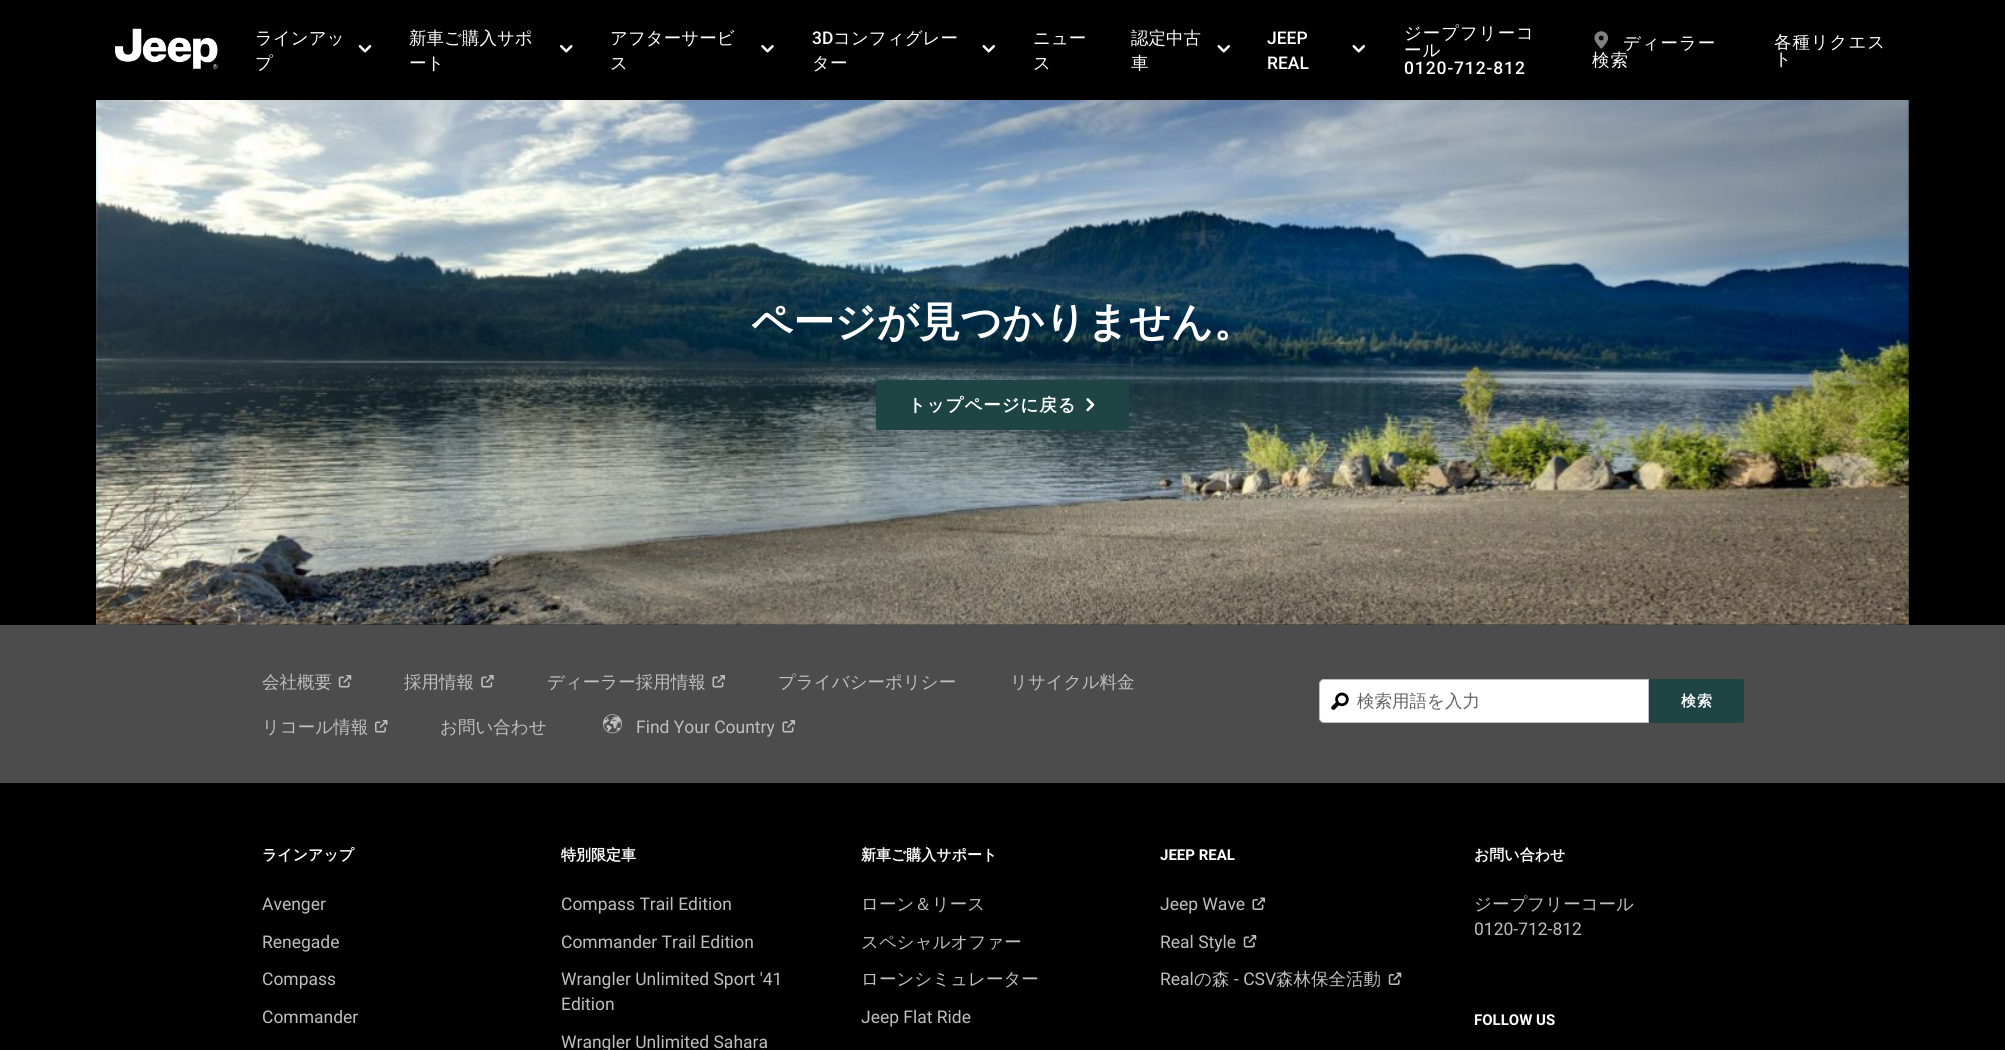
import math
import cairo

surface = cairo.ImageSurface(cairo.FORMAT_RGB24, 2005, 1050)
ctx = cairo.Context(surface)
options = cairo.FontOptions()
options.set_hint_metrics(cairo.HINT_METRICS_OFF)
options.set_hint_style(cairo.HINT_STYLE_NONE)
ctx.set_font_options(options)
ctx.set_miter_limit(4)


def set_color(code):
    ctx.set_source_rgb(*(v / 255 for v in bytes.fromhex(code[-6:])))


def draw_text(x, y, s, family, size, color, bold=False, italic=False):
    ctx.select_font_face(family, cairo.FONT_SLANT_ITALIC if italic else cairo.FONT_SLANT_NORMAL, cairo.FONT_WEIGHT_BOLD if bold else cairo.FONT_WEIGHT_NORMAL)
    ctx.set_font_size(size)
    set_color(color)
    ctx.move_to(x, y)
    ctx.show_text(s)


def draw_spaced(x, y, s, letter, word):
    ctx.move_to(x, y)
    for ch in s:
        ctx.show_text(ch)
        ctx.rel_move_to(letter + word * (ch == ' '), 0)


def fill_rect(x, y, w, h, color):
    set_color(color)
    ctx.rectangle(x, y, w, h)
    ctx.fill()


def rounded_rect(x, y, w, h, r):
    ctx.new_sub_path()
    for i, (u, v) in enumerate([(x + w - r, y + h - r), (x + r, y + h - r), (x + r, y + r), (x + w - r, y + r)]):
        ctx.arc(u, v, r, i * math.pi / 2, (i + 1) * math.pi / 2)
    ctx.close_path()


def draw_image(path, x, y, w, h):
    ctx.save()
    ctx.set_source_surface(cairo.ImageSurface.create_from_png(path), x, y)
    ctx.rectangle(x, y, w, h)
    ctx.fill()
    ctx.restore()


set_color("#000000")
ctx.paint()
draw_image("assets/img1.png", 115, 28, 103, 41)
draw_text(255, 44, "ラインアッ", "WenQuanYi Zen Hei Medium", 17.5, "#ffffff")
draw_text(255, 69, "プ", "WenQuanYi Zen Hei Medium", 17.5, "#ffffff")
draw_image("assets/img2.png", 358, 45, 14, 8)
draw_text(409, 44, "新車ご購入サポ", "WenQuanYi Zen Hei Medium", 17.5, "#ffffff")
draw_text(409, 69, "ート", "WenQuanYi Zen Hei Medium", 17.5, "#ffffff")
draw_image("assets/img3.png", 560, 45, 13, 8)
draw_text(610, 44, "アフターサービ", "WenQuanYi Zen Hei Medium", 17.5, "#ffffff")
draw_text(610, 69, "ス", "WenQuanYi Zen Hei Medium", 17.5, "#ffffff")
draw_image("assets/img4.png", 761, 45, 13, 8)
draw_text(812, 44, "3D", "Roboto Medium", 17.5, "#ffffff")
draw_text(833, 44, "コンフィグレー", "WenQuanYi Zen Hei Medium", 17.5, "#ffffff")
draw_text(812, 69, "ター", "WenQuanYi Zen Hei Medium", 17.5, "#ffffff")
draw_image("assets/img5.png", 982, 45, 13, 8)
draw_text(1033, 44, "ニュー", "WenQuanYi Zen Hei Medium", 17.5, "#ffffff")
draw_text(1033, 69, "ス", "WenQuanYi Zen Hei Medium", 17.5, "#ffffff")
draw_text(1131, 44, "認定中古", "WenQuanYi Zen Hei Medium", 17.5, "#ffffff")
draw_text(1131, 69, "車", "WenQuanYi Zen Hei Medium", 17.5, "#ffffff")
draw_image("assets/img5.png", 1217, 45, 13, 8)
draw_text(1267, 44, "JEEP", "Roboto Medium", 17.5, "#ffffff")
draw_text(1267, 69, "REAL", "Roboto Medium", 17.5, "#ffffff")
draw_image("assets/img5.png", 1352, 45, 13, 8)
ctx.select_font_face("WenQuanYi Zen Hei Medium")
draw_spaced(1404, 39, "ジープフリーコ", 0.9, 0)
draw_spaced(1404, 56, "ール", 0.9, 0)
ctx.select_font_face("Roboto Medium")
draw_spaced(1404, 74, "0120-712-812", 0.9, 0)
draw_image("assets/img6.png", 1594, 31, 15, 18)
ctx.select_font_face("WenQuanYi Zen Hei Medium")
draw_spaced(1623, 49, "ディーラー", 0.9, 0)
draw_spaced(1592, 66, "検索", 0.9, 0)
draw_spaced(1774, 48, "各種リクエス", 0.9, 0)
draw_spaced(1774, 65, "ト", 0.9, 0)
draw_image("assets/img7.png", 96, 100, 1813, 525)
draw_text(751, 336, "ページが見つかりません。", "WenQuanYi Zen Hei", 41.25, "#ffffff", bold=True)
set_color("#1e4544")
rounded_rect(876, 380, 253, 50, 2.5)
ctx.fill()
ctx.set_font_size(17.5)
set_color("#ffffff")
draw_spaced(908, 411, "トップページに戻る", 0.9, 0)
draw_image("assets/img8.png", 1086, 398, 9, 14)
fill_rect(0, 625, 2005, 158, "#4c4c4c")
draw_text(262, 688, "会社概要", "WenQuanYi Zen Hei Medium", 17.5, "#bfbfbf")
draw_image("assets/img9.png", 338, 675, 14, 13)
draw_text(404, 688, "採用情報", "WenQuanYi Zen Hei Medium", 17.5, "#bfbfbf")
draw_image("assets/img10.png", 481, 675, 13, 13)
draw_text(547, 688, "ディーラー採用情報", "WenQuanYi Zen Hei Medium", 17.5, "#bfbfbf")
draw_image("assets/img11.png", 712, 675, 13, 13)
draw_text(778, 688, "プライバシーポリシー", "WenQuanYi Zen Hei Medium", 17.5, "#bfbfbf")
draw_text(1010, 688, "リサイクル料金", "WenQuanYi Zen Hei Medium", 17.5, "#bfbfbf")
draw_text(262, 733, "リコール情報", "WenQuanYi Zen Hei Medium", 17.5, "#bfbfbf")
draw_image("assets/img12.png", 375, 720, 13, 13)
draw_text(440, 733, "お問い合わせ", "WenQuanYi Zen Hei Medium", 17.5, "#bfbfbf")
draw_image("assets/img13.png", 603, 714, 19, 20)
draw_text(636, 733, "Find Your Country", "Roboto", 17.5, "#bfbfbf")
draw_image("assets/img11.png", 782, 720, 13, 13)
set_color("#ffffff")
ctx.new_path()
ctx.move_to(1324, 679.5)
ctx.line_to(1648.5, 679.5)
ctx.line_to(1648.5, 722.5)
ctx.line_to(1324, 722.5)
ctx.curve_to(1321.5, 722.5, 1319.5, 720.5, 1319.5, 718)
ctx.line_to(1319.5, 684)
ctx.curve_to(1319.5, 681.5, 1321.5, 679.5, 1324, 679.5)
ctx.close_path()
ctx.fill_preserve()
set_color("#bfbfbf")
ctx.set_line_width(1)
ctx.stroke()
draw_image("assets/img14.png", 1331, 692, 18, 18)
draw_text(1357, 707, "検索用語を入力", "WenQuanYi Zen Hei Medium", 17.5, "#636363")
set_color("#1e4544")
ctx.new_path()
ctx.move_to(1649, 679)
ctx.line_to(1741.5, 679)
ctx.curve_to(1743, 679, 1744, 680, 1744, 681.5)
ctx.line_to(1744, 720.5)
ctx.curve_to(1744, 722, 1743, 723, 1741.5, 723)
ctx.line_to(1649, 723)
ctx.close_path()
ctx.fill()
ctx.select_font_face("WenQuanYi Zen Hei", cairo.FONT_SLANT_NORMAL, cairo.FONT_WEIGHT_BOLD)
ctx.set_font_size(15)
set_color("#ffffff")
draw_spaced(1681, 706, "検索", 0.9, 0)
draw_text(262, 860, "ラインアップ", "WenQuanYi Zen Hei", 15, "#ffffff", bold=True)
draw_text(262, 910, "Avenger", "Roboto", 17.5, "#bfbfbf")
draw_text(262, 948, "Renegade", "Roboto", 17.5, "#bfbfbf")
draw_text(262, 985, "Compass", "Roboto", 17.5, "#bfbfbf")
draw_text(262, 1023, "Commander", "Roboto", 17.5, "#bfbfbf")
draw_text(561, 860, "特別限定車", "WenQuanYi Zen Hei", 15, "#ffffff", bold=True)
draw_text(561, 910, "Compass Trail Edition", "Roboto", 17.5, "#bfbfbf")
draw_text(561, 948, "Commander Trail Edition", "Roboto", 17.5, "#bfbfbf")
draw_text(561, 985, "Wrangler Unlimited Sport '41", "Roboto", 17.5, "#bfbfbf")
draw_text(561, 1010, "Edition", "Roboto", 17.5, "#bfbfbf")
draw_text(561, 1048, "Wrangler Unlimited Sahara", "Roboto", 17.5, "#bfbfbf")
draw_text(861, 860, "新車ご購入サポート", "WenQuanYi Zen Hei", 15, "#ffffff", bold=True)
draw_text(861, 910, "ローン＆リース", "WenQuanYi Zen Hei Medium", 17.5, "#bfbfbf")
draw_text(861, 948, "スペシャルオファー", "WenQuanYi Zen Hei Medium", 17.5, "#bfbfbf")
draw_text(861, 985, "ローンシミュレーター", "WenQuanYi Zen Hei Medium", 17.5, "#bfbfbf")
draw_text(861, 1023, "Jeep Flat Ride", "Roboto", 17.5, "#bfbfbf")
draw_text(1160, 860, "JEEP REAL", "Roboto", 15, "#ffffff", bold=True)
draw_text(1160, 910, "Jeep Wave", "Roboto", 17.5, "#bfbfbf")
draw_image("assets/img15.png", 1252, 897, 13, 13)
draw_text(1160, 948, "Real Style", "Roboto", 17.5, "#bfbfbf")
draw_image("assets/img16.png", 1243, 935, 14, 13)
draw_text(1160, 985, "Real", "Roboto", 17.5, "#bfbfbf")
draw_text(1194, 985, "の森", "WenQuanYi Zen Hei Medium", 17.5, "#bfbfbf")
draw_text(1234, 985, "- CSV", "Roboto", 17.5, "#bfbfbf")
draw_text(1276, 985, "森林保全活動", "WenQuanYi Zen Hei Medium", 17.5, "#bfbfbf")
draw_image("assets/img17.png", 1388, 972, 14, 13)
draw_text(1474, 860, "お問い合わせ", "WenQuanYi Zen Hei", 15, "#ffffff", bold=True)
draw_text(1474, 910, "ジープフリーコール", "WenQuanYi Zen Hei Medium", 17.5, "#bfbfbf")
draw_text(1474, 935, "0120-712-812", "Roboto", 17.5, "#bfbfbf")
draw_text(1474, 1025, "FOLLOW US", "Roboto", 15, "#ffffff", bold=True)
surface.write_to_png("output.png")
